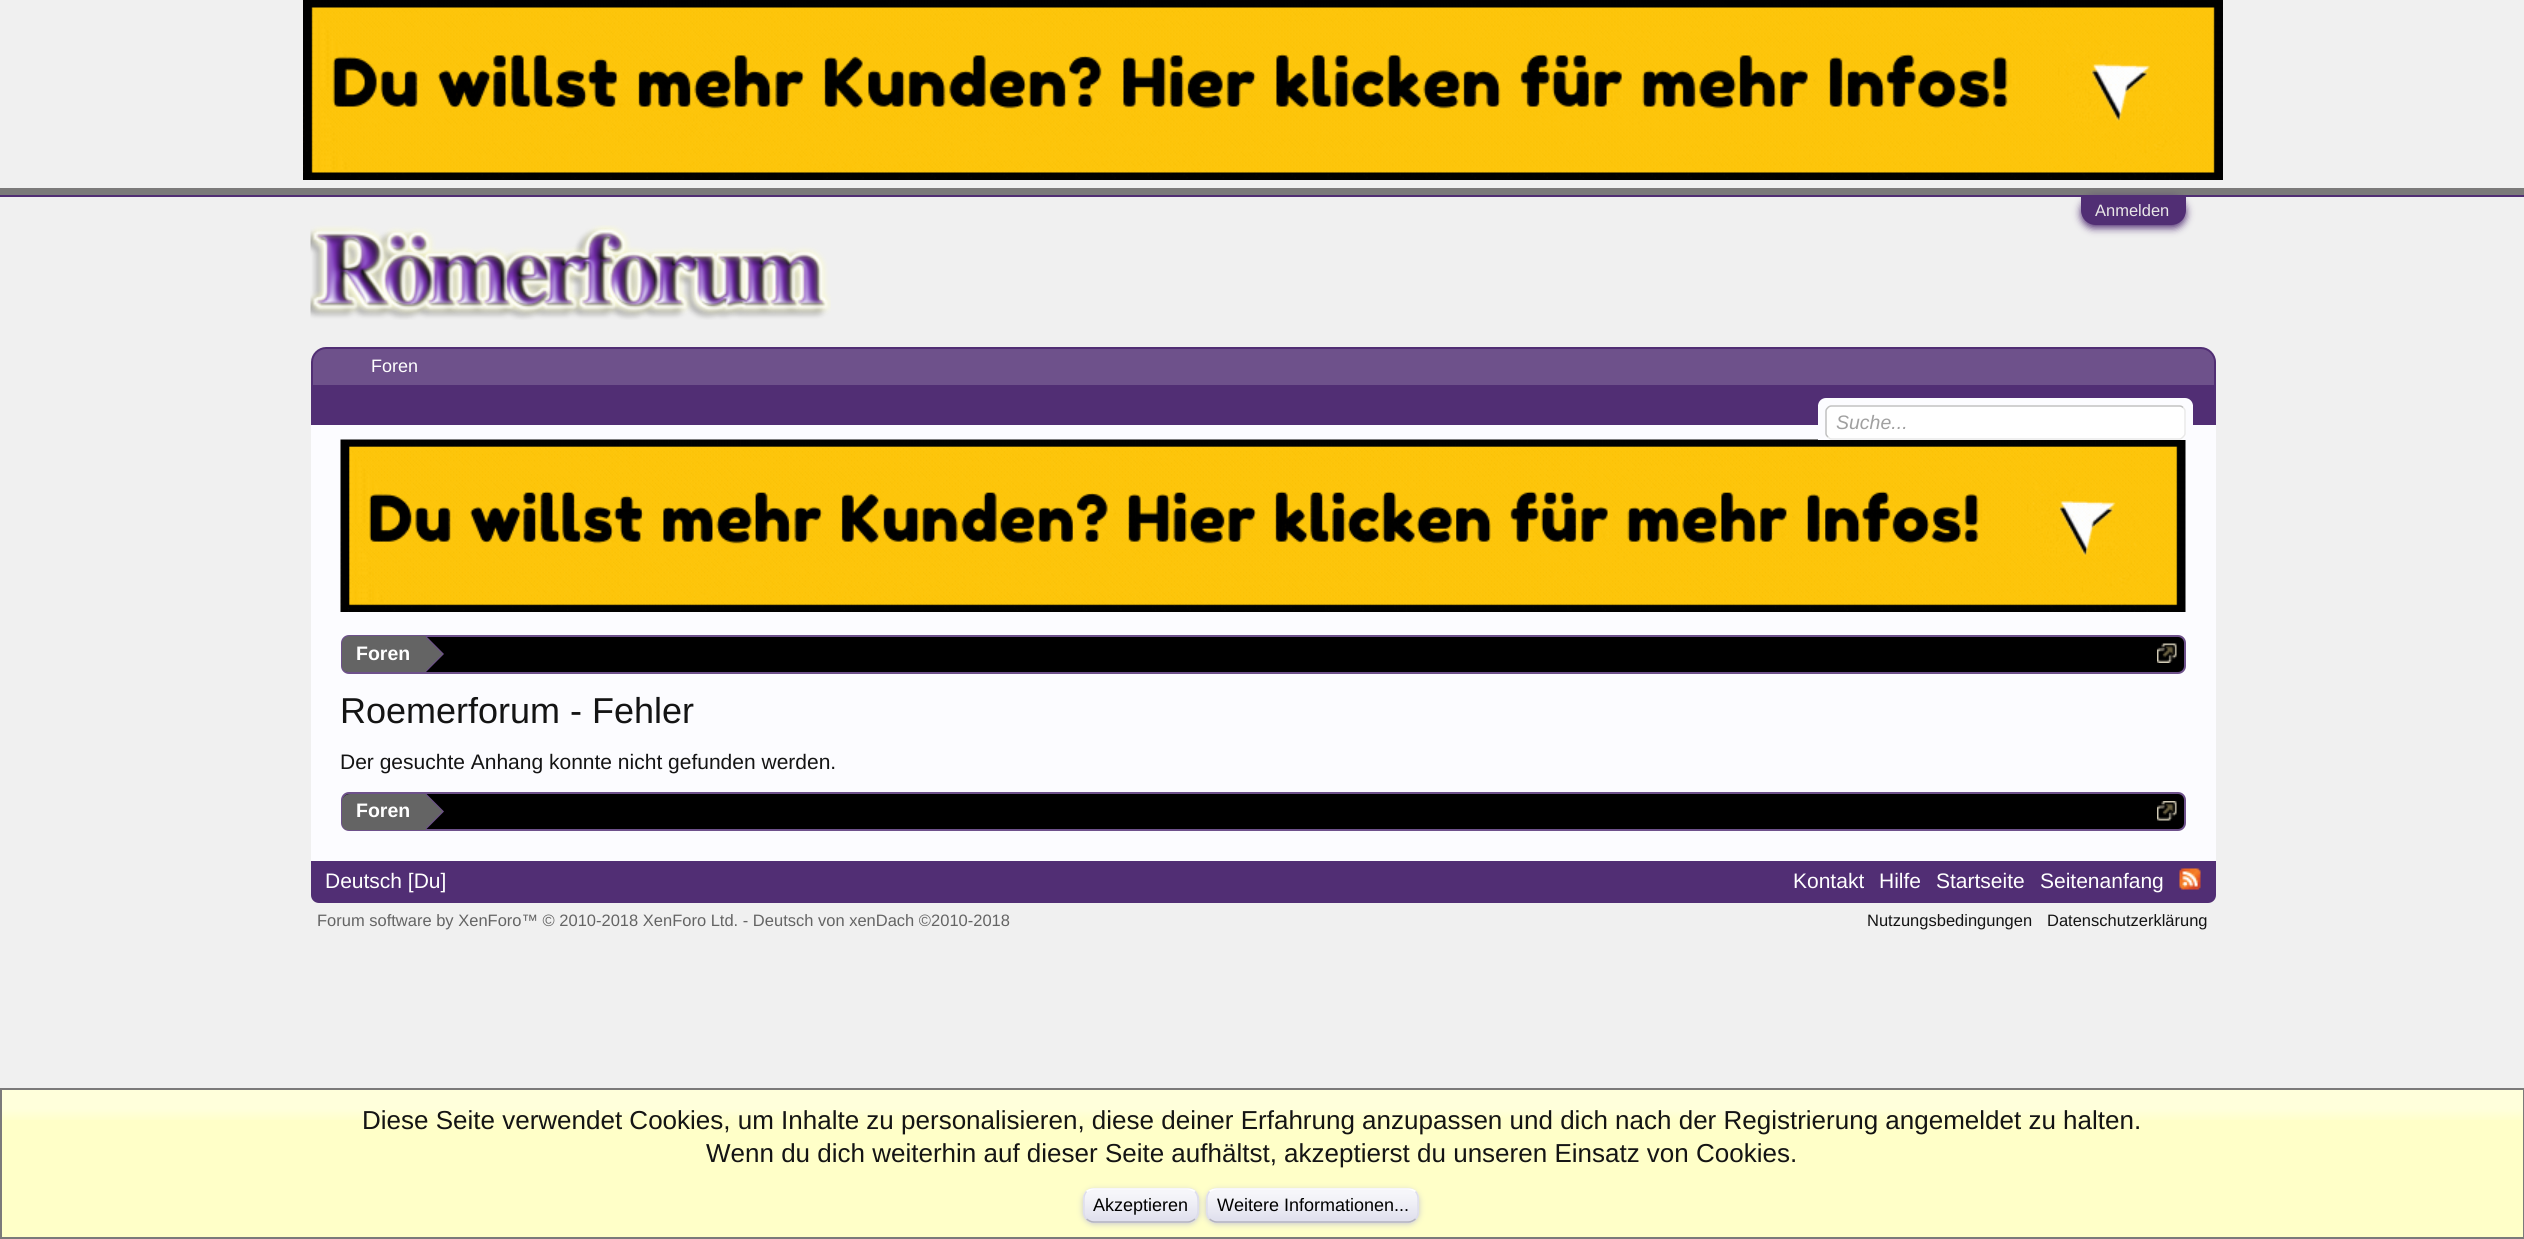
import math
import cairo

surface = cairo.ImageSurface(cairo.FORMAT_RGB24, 2524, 1239)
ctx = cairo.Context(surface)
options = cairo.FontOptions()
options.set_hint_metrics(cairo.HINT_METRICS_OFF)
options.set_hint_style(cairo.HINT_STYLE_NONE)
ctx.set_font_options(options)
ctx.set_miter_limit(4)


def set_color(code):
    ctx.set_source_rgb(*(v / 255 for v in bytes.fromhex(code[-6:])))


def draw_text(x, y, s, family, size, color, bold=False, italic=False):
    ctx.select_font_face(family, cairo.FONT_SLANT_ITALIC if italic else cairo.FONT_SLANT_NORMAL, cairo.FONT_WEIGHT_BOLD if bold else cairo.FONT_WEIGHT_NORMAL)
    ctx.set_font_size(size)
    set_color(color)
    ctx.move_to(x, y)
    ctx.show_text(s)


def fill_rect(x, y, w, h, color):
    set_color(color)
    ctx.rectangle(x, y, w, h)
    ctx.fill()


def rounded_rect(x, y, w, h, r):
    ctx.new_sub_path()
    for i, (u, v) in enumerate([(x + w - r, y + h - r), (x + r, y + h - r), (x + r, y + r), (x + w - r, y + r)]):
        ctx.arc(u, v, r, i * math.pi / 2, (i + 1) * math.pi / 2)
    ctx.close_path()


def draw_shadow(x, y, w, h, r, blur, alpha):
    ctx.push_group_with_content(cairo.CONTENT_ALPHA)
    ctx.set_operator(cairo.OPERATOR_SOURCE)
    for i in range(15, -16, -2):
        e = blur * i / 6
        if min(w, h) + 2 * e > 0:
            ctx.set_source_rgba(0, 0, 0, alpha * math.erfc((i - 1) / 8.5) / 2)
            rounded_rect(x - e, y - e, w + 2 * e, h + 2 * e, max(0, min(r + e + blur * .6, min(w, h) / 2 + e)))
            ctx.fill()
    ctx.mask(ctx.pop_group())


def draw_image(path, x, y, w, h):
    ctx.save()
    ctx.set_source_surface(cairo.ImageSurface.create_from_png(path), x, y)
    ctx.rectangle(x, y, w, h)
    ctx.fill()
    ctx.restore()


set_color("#f0f0f0")
ctx.paint()
draw_image("assets/img1.png", 303, 0, 1920, 180)
fill_rect(0, 188, 2524, 7, "#7b7a7a")
fill_rect(0, 195, 2524, 2, "#512e74")
set_color("#512e74")
draw_shadow(2081, 198, 105, 30, 15, 4, 1)
set_color("#512e74")
ctx.new_path()
ctx.move_to(2081, 195)
ctx.line_to(2186, 195)
ctx.line_to(2186, 210)
ctx.curve_to(2186, 218.5, 2179.5, 225, 2171, 225)
ctx.line_to(2096, 225)
ctx.curve_to(2087.5, 225, 2081, 218.5, 2081, 210)
ctx.close_path()
ctx.fill()
draw_text(2095, 216, "Anmelden", "Liberation Sans", 16.5, "#e9e7e7")
draw_image("assets/img2.png", 310, 225, 521, 95)
set_color("#6e518b")
ctx.new_path()
ctx.move_to(326, 348)
ctx.line_to(2201, 348)
ctx.curve_to(2208.5, 348, 2215, 354.5, 2215, 362)
ctx.line_to(2215, 386)
ctx.line_to(312, 386)
ctx.line_to(312, 362)
ctx.curve_to(312, 354.5, 318.5, 348, 326, 348)
ctx.close_path()
ctx.fill_preserve()
set_color("#512e74")
ctx.stroke()
draw_text(371, 372, "Foren", "Liberation Sans", 18, "#ffffff")
fill_rect(311, 387, 1905, 38, "#512e74")
fill_rect(311, 425, 1905, 436, "#fcfcff")
draw_image("assets/img3.png", 340, 439, 1846, 173)
rounded_rect(1818, 398, 375, 42, 8)
ctx.fill()
fill_rect(1818, 405, 375, 35, "#fcfcff")
set_color("#ffffff")
rounded_rect(1826, 405, 360, 35, 6)
ctx.fill()
ctx.new_path()
ctx.move_to(2183, 407.5)
ctx.curve_to(2184, 408.5, 2185, 409.5, 2185, 411)
ctx.line_to(2185, 433.5)
ctx.curve_to(2185, 435, 2184, 436, 2183, 437)
ctx.curve_to(2182, 438, 2181, 439, 2179.5, 439)
ctx.line_to(1831.5, 439)
ctx.curve_to(1830, 439, 1829, 438, 1828, 437)
set_color("#e9e9e9")
ctx.set_line_width(1.5)
ctx.stroke()
ctx.new_path()
ctx.move_to(1828, 437)
ctx.curve_to(1827, 436, 1826, 435, 1826, 433.5)
ctx.line_to(1826, 411)
ctx.curve_to(1826, 409.5, 1827, 408.5, 1828, 407.5)
ctx.curve_to(1829, 406.5, 1830, 406, 1831.5, 406)
ctx.line_to(2179.5, 406)
ctx.curve_to(2181, 406, 2182, 406.5, 2183, 407.5)
set_color("#c0c0c0")
ctx.stroke()
draw_text(1836, 429, "Suche...", "Liberation Sans", 19.5, "#a0a0a0", italic=True)
set_color("#000000")
rounded_rect(342, 636, 1843, 37, 7)
ctx.fill_preserve()
set_color("#6e518b")
ctx.set_line_width(2)
ctx.stroke()
ctx.save()
rounded_rect(342, 636, 1842, 36, 6)
ctx.clip()
set_color("#646464")
ctx.new_path()
ctx.move_to(350, 636)
ctx.line_to(426, 636)
ctx.line_to(426, 674)
ctx.line_to(350, 674)
ctx.curve_to(345.5, 674, 342, 670.5, 342, 666)
ctx.line_to(342, 644)
ctx.curve_to(342, 639.5, 345.5, 636, 350, 636)
ctx.close_path()
ctx.fill()
ctx.restore()
draw_text(356, 660, "Foren", "Liberation Sans", 19.5, "#ffffff", bold=True)
set_color("#6e518b")
ctx.new_path()
ctx.move_to(426, 672)
ctx.line_to(426, 636)
ctx.line_to(444, 654)
ctx.close_path()
ctx.fill()
set_color("#646464")
ctx.new_path()
ctx.move_to(424.5, 672)
ctx.line_to(424.5, 636)
ctx.line_to(442.5, 654)
ctx.close_path()
ctx.fill()
draw_image("assets/img4.png", 2157, 643, 20, 20)
draw_text(340, 723, "Roemerforum - Fehler", "Liberation Sans", 36, "#141414")
draw_text(340, 769, "Der gesuchte Anhang konnte nicht gefunden werden.", "Liberation Sans", 21, "#141414")
set_color("#000000")
rounded_rect(342, 793, 1843, 37, 7)
ctx.fill_preserve()
set_color("#6e518b")
ctx.stroke()
ctx.save()
rounded_rect(342, 794, 1842, 36, 6)
ctx.clip()
set_color("#646464")
ctx.new_path()
ctx.move_to(350, 794)
ctx.line_to(426, 794)
ctx.line_to(426, 831)
ctx.line_to(350, 831)
ctx.curve_to(345.5, 831, 342, 827.5, 342, 823)
ctx.line_to(342, 802)
ctx.curve_to(342, 797.5, 345.5, 794, 350, 794)
ctx.close_path()
ctx.fill()
ctx.restore()
draw_text(356, 817, "Foren", "Liberation Sans", 19.5, "#ffffff", bold=True)
set_color("#6e518b")
ctx.new_path()
ctx.move_to(426, 829.5)
ctx.line_to(426, 793.5)
ctx.line_to(444, 811.5)
ctx.close_path()
ctx.fill()
set_color("#646464")
ctx.new_path()
ctx.move_to(424.5, 829.5)
ctx.line_to(424.5, 793.5)
ctx.line_to(442.5, 811.5)
ctx.close_path()
ctx.fill()
draw_image("assets/img5.png", 2157, 801, 20, 20)
set_color("#512e74")
ctx.new_path()
ctx.move_to(311, 861)
ctx.line_to(2216, 861)
ctx.line_to(2216, 895)
ctx.curve_to(2216, 899.5, 2212.5, 903, 2208, 903)
ctx.line_to(319, 903)
ctx.curve_to(314.5, 903, 311, 899.5, 311, 895)
ctx.close_path()
ctx.fill()
draw_text(325, 888, "Deutsch [Du]", "Liberation Sans", 21, "#ffffff")
draw_text(1793, 888, "Kontakt", "Liberation Sans", 21, "#ffffff")
draw_text(1879, 888, "Hilfe", "Liberation Sans", 21, "#ffffff")
draw_text(1936, 888, "Startseite", "Liberation Sans", 21, "#ffffff")
draw_text(2040, 888, "Seitenanfang", "Liberation Sans", 21, "#ffffff")
draw_image("assets/img6.png", 2179, 868, 22, 22)
draw_text(317, 926, "Forum software by XenForo™ © 2010-2018 XenForo Ltd. - Deutsch von xenDach ©2010-2018", "Liberation Sans", 16.5, "#646464")
draw_text(1867, 926, "Nutzungsbedingungen", "Liberation Sans", 16.5, "#141414")
draw_text(2047, 926, "Datenschutzerklärung", "Liberation Sans", 16.5, "#141414")
fill_rect(2, 1090, 2521, 147, "#ffffc8")
draw_image("assets/img7.png", 2, 1090, 2521, 30)
ctx.rectangle(1, 1089, 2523, 149)
set_color("#7b7a7a")
ctx.stroke()
draw_text(362, 1129, "Diese Seite verwendet Cookies, um Inhalte zu personalisieren, diese deiner Erfahrung anzupassen und dich nach der Registrierung angemeldet zu halten.", "Liberation Sans", 26, "#141414")
draw_text(706, 1162, "Wenn du dich weiterhin auf dieser Seite aufhältst, akzeptierst du unseren Einsatz von Cookies.", "Liberation Sans", 26, "#141414")
set_color("#c8c8d2")
draw_shadow(1083, 1190, 116, 34, 11, 3, 1)
set_color("#dcdceb")
rounded_rect(1083, 1188, 116, 35, 11)
ctx.fill()
draw_image("assets/img8.png", 1083, 1189, 116, 32)
ctx.new_path()
ctx.move_to(1086.5, 1191.5)
ctx.curve_to(1088.5, 1190, 1091, 1189, 1093.5, 1189)
ctx.line_to(1188, 1189)
ctx.curve_to(1190.5, 1189, 1193, 1190, 1195, 1191.5)
set_color("#ffffff")
ctx.set_line_width(1.5)
ctx.stroke()
ctx.new_path()
ctx.move_to(1195, 1191.5)
ctx.curve_to(1198.5, 1195.5, 1198, 1200.5, 1198, 1205)
ctx.curve_to(1198, 1210, 1198.5, 1215, 1195, 1219)
set_color("#ddddeb")
ctx.stroke()
ctx.new_path()
ctx.move_to(1195, 1219)
ctx.curve_to(1193, 1220.5, 1190.5, 1222, 1188, 1222)
ctx.line_to(1093.5, 1222)
ctx.curve_to(1091, 1222, 1088.5, 1220.5, 1086.5, 1219)
set_color("#b3b3bd")
ctx.stroke()
ctx.new_path()
ctx.move_to(1086.5, 1219)
ctx.curve_to(1083, 1215, 1084, 1210, 1084, 1205)
ctx.curve_to(1084, 1200.5, 1083, 1195.5, 1086.5, 1191.5)
set_color("#ddddeb")
ctx.stroke()
draw_text(1093, 1211, "Akzeptieren", "Liberation Sans", 18, "#000000")
set_color("#c8c8d2")
draw_shadow(1206, 1190, 213, 34, 11, 3, 1)
set_color("#dcdceb")
rounded_rect(1206, 1188, 213, 35, 11)
ctx.fill()
draw_image("assets/img9.png", 1206, 1189, 213, 32)
ctx.new_path()
ctx.move_to(1209.5, 1191.5)
ctx.curve_to(1211.5, 1190, 1214, 1189, 1216.5, 1189)
ctx.line_to(1408.5, 1189)
ctx.curve_to(1411, 1189, 1413.5, 1190, 1415.5, 1191.5)
set_color("#ffffff")
ctx.stroke()
ctx.new_path()
ctx.move_to(1415.5, 1191.5)
ctx.curve_to(1419, 1195.5, 1418, 1200.5, 1418, 1205)
ctx.curve_to(1418, 1210, 1419, 1215, 1415.5, 1219)
set_color("#ddddeb")
ctx.stroke()
ctx.new_path()
ctx.move_to(1415.5, 1219)
ctx.curve_to(1413.5, 1220.5, 1411, 1222, 1408.5, 1222)
ctx.line_to(1216.5, 1222)
ctx.curve_to(1214, 1222, 1211.5, 1220.5, 1209.5, 1219)
set_color("#b3b3bd")
ctx.stroke()
ctx.new_path()
ctx.move_to(1209.5, 1219)
ctx.curve_to(1206, 1215, 1207, 1210, 1207, 1205)
ctx.curve_to(1207, 1200.5, 1206, 1195.5, 1209.5, 1191.5)
set_color("#ddddeb")
ctx.stroke()
draw_text(1217, 1211, "Weitere Informationen...", "Liberation Sans", 18, "#000000")
surface.write_to_png("output.png")
